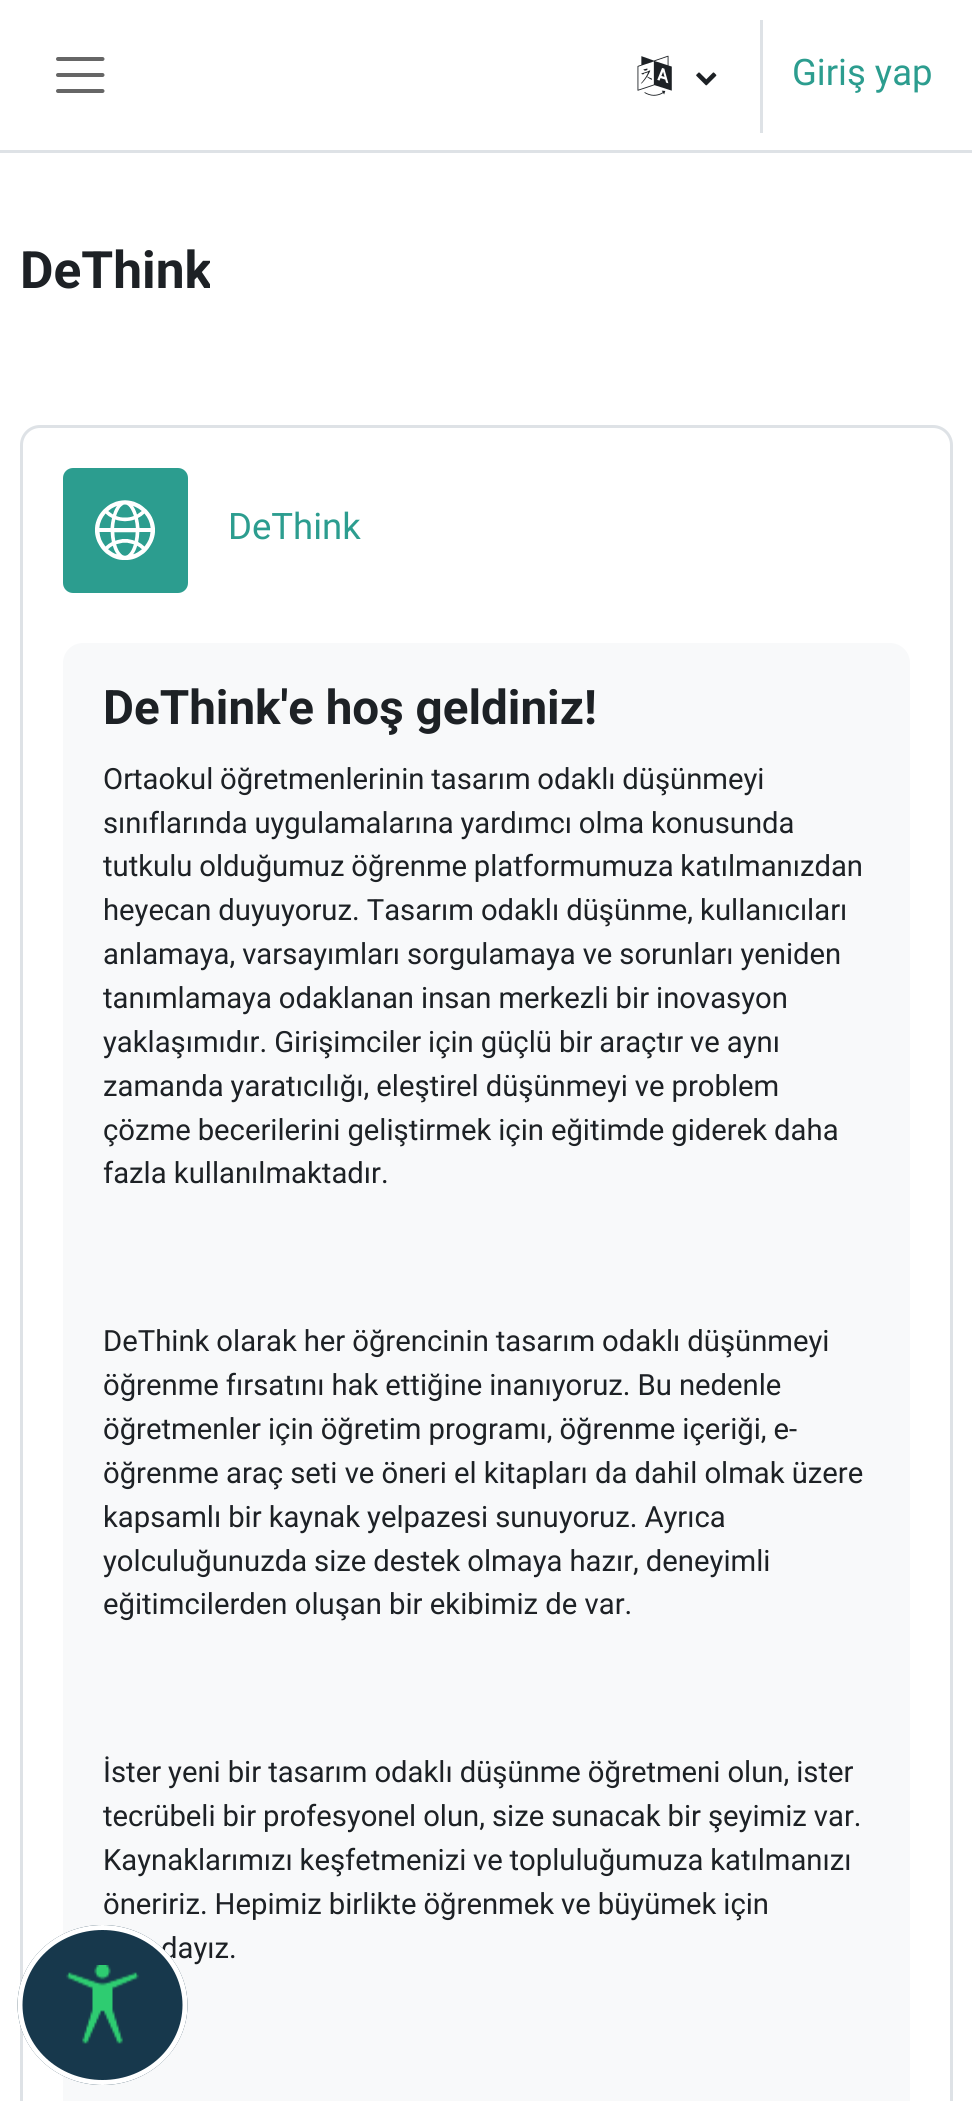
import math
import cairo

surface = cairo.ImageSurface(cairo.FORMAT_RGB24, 972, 2101)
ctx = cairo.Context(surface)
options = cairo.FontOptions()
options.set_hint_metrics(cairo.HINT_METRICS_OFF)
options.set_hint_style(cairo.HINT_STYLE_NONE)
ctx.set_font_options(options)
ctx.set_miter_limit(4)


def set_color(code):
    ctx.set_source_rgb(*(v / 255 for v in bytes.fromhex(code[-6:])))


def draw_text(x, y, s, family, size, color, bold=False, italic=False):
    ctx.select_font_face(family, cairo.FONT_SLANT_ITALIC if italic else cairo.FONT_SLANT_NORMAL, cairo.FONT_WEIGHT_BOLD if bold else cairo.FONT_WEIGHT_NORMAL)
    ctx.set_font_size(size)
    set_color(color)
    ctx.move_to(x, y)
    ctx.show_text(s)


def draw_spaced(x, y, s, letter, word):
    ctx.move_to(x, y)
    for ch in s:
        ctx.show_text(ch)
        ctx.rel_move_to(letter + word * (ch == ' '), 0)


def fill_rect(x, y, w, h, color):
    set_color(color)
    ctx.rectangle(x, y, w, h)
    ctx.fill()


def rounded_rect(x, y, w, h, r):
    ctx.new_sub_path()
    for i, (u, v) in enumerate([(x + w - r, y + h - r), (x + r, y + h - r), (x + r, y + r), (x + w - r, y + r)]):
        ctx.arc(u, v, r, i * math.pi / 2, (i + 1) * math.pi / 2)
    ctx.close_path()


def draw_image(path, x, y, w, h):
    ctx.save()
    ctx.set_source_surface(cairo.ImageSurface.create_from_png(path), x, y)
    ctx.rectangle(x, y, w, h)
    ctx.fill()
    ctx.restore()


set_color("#ffffff")
ctx.paint()
fill_rect(0, 150, 972, 3, "#dee2e6")
ctx.new_path()
ctx.move_to(58, 59)
ctx.line_to(102.5, 59)
ctx.move_to(58, 75)
ctx.line_to(102.5, 75)
ctx.move_to(58, 91)
ctx.line_to(102.5, 91)
set_color("#666666")
ctx.set_line_width(4)
ctx.set_line_cap(cairo.LINE_CAP_ROUND)
ctx.stroke()
draw_image("assets/img1.png", 637, 55, 35, 41)
draw_image("assets/img2.png", 696, 72, 21, 14)
fill_rect(760, 20, 3, 113, "#dee2e6")
draw_text(792, 85, "Giriş yap", "Roboto", 36.5, "#2c9d8f")
ctx.save()
ctx.rectangle(20, 230, 190, 103)
ctx.clip()
draw_text(20, 288, "DeThink", "Roboto", 51.5, "#1d2125", bold=True)
ctx.restore()
rounded_rect(21.5, 426.5, 930, 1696, 18.5)
set_color("#dee2e6")
ctx.set_line_width(3)
ctx.set_line_cap(cairo.LINE_CAP_BUTT)
ctx.stroke()
set_color("#2c9d8f")
rounded_rect(63, 468, 125, 125, 10)
ctx.fill()
draw_image("assets/img3.png", 95, 500, 60, 60)
draw_text(228, 539, "DeThink", "Roboto", 36.5, "#2c9d8f")
set_color("#f8f9fa")
rounded_rect(63, 643, 847, 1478, 20)
ctx.fill()
draw_text(103, 724, "DeThink'e hoş geldiniz!", "Roboto", 47.6, "#1d2125", bold=True)
ctx.select_font_face("Roboto")
ctx.set_font_size(29.25)
draw_spaced(103, 789, "Ortaokul öğretmenlerinin tasarım odaklı düşünmeyi", 0, -0.5)
draw_spaced(103, 833, "sınıflarında uygulamalarına yardımcı olma konusunda", 0, -0.5)
ctx.save()
ctx.rectangle(103, 683, 767, 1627)
ctx.clip()
draw_spaced(103, 876, "tutkulu olduğumuz öğrenme platformumuza katılmanızdan", 0, -0.5)
ctx.restore()
draw_spaced(103, 920, "heyecan duyuyoruz. Tasarım odaklı düşünme, kullanıcıları", 0, -0.25)
draw_spaced(103, 964, "anlamaya, varsayımları sorgulamaya ve sorunları yeniden", 0, -0.25)
ctx.save()
ctx.rectangle(103, 683, 767, 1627)
ctx.clip()
draw_spaced(103, 1008, "tanımlamaya odaklanan insan merkezli bir inovasyon", 0, -0.25)
ctx.restore()
draw_spaced(103, 1052, "yaklaşımıdır. Girişimciler için güçlü bir araçtır ve aynı", 0, -0.25)
draw_spaced(103, 1096, "zamanda yaratıcılığı, eleştirel düşünmeyi ve problem", 0, -0.25)
draw_spaced(103, 1140, "çözme becerilerini geliştirmek için eğitimde giderek daha", 0, -0.25)
draw_text(103, 1183, "fazla kullanılmaktadır.", "Roboto", 29.25, "#1d2125")
draw_spaced(103, 1351, "DeThink olarak her öğrencinin tasarım odaklı düşünmeyi", 0, -0.25)
draw_spaced(103, 1395, "öğrenme fırsatını hak ettiğine inanıyoruz. Bu nedenle", 0, -0.25)
draw_spaced(103, 1439, "öğretmenler için öğretim programı, öğrenme içeriği, e-", 0, -0.25)
draw_spaced(103, 1483, "öğrenme araç seti ve öneri el kitapları da dahil olmak üzere", 0, -0.1)
draw_spaced(103, 1527, "kapsamlı bir kaynak yelpazesi sunuyoruz. Ayrıca", 0, -0.25)
draw_spaced(103, 1571, "yolculuğunuzda size destek olmaya hazır, deneyimli", 0, -0.25)
draw_text(103, 1614, "eğitimcilerden oluşan bir ekibimiz de var.", "Roboto", 29.25, "#1d2125")
draw_spaced(103, 1782, "İster yeni bir tasarım odaklı düşünme öğretmeni olun, ister", 0, -0.25)
ctx.save()
ctx.rectangle(103, 683, 767, 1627)
ctx.clip()
draw_spaced(103, 1826, "tecrübeli bir profesyonel olun, size sunacak bir şeyimiz var.", 0, -0.25)
ctx.restore()
draw_spaced(103, 1870, "Kaynaklarımızı keşfetmenizi ve topluluğumuza katılmanızı", 0, -0.5)
draw_spaced(103, 1914, "öneririz. Hepimiz birlikte öğrenmek ve büyümek için", 0, -0.25)
draw_text(161, 1958, "dayız.", "Roboto", 29.25, "#1d2125")
set_color("#17384c")
ctx.new_path()
ctx.move_to(102.5, 1925)
ctx.curve_to(149.5, 1925, 187.5, 1961, 187.5, 2005)
ctx.curve_to(187.5, 2049, 149.5, 2085, 102.5, 2085)
ctx.curve_to(55.5, 2085, 17.5, 2049, 17.5, 2005)
ctx.curve_to(17.5, 1961, 55.5, 1925, 102.5, 1925)
ctx.close_path()
ctx.fill()
ctx.new_path()
ctx.move_to(102.5, 1927.5)
ctx.curve_to(148, 1927.5, 185, 1962, 185, 2005)
ctx.curve_to(185, 2048, 148, 2082.5, 102.5, 2082.5)
ctx.curve_to(57, 2082.5, 20, 2048, 20, 2005)
ctx.curve_to(20, 1962, 57, 1927.5, 102.5, 1927.5)
ctx.close_path()
set_color("#ffffff")
ctx.set_line_width(5)
ctx.stroke()
draw_image("assets/img4.png", 66, 1965, 73, 79)
surface.write_to_png("output.png")
